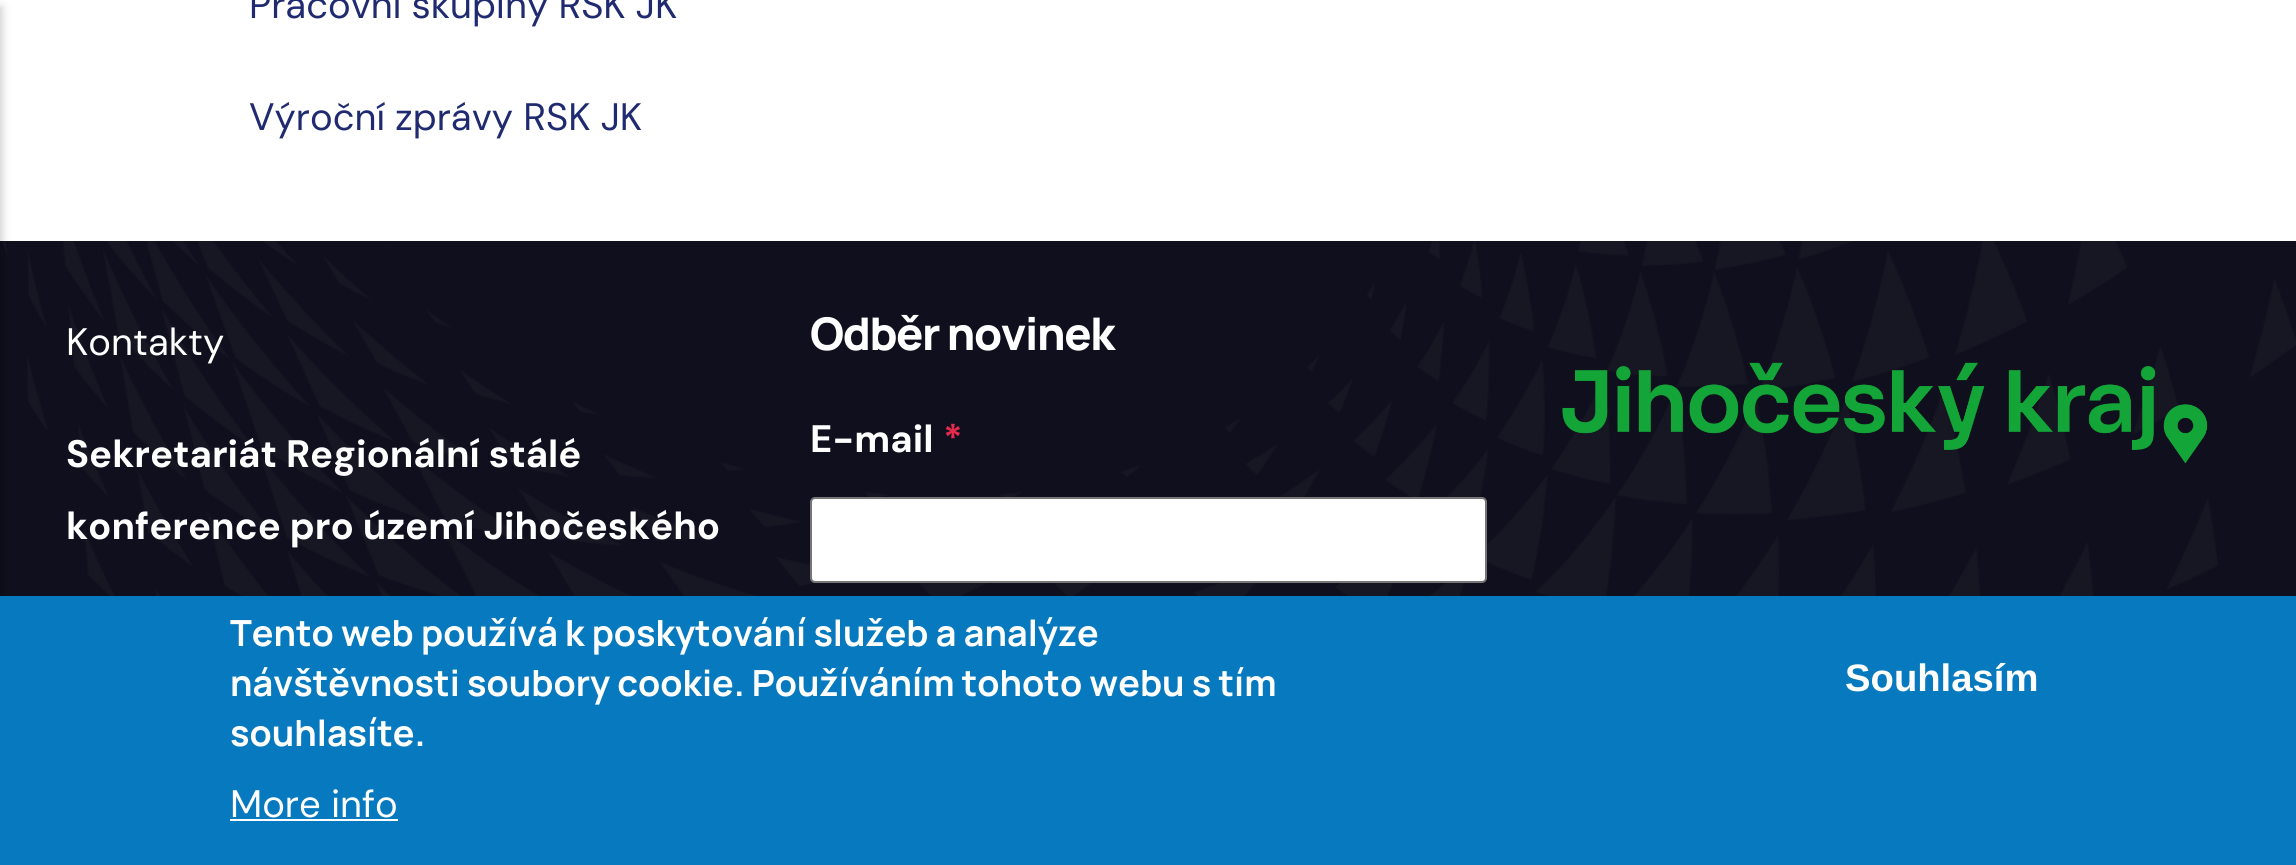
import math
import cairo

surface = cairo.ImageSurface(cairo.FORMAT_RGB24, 2296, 865)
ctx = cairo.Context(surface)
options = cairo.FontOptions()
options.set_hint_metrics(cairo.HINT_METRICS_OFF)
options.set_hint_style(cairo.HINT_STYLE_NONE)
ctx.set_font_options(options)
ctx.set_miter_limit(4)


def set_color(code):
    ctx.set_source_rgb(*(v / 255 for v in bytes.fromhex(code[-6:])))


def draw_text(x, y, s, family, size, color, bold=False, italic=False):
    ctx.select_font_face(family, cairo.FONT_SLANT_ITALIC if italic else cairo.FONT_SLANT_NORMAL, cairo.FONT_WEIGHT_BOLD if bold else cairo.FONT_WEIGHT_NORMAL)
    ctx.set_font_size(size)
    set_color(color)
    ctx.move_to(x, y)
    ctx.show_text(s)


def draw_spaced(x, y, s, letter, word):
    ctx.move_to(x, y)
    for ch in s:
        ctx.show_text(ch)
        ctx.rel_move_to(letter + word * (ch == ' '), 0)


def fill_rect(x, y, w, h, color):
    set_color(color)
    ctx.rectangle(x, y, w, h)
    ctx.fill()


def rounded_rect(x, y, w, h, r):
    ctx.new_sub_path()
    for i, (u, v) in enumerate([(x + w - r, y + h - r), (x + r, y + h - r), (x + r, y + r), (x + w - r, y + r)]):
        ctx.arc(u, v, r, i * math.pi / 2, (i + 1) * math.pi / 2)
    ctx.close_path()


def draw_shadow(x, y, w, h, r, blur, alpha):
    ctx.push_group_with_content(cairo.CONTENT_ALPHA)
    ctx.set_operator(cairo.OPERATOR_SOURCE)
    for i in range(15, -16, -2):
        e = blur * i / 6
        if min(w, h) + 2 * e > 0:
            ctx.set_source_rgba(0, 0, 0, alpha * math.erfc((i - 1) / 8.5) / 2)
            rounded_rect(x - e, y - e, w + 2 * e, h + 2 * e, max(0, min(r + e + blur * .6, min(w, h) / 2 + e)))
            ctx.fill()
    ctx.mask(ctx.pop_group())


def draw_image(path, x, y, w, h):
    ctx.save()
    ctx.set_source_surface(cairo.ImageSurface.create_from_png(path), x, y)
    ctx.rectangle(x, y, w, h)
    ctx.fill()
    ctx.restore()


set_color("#ffffff")
ctx.paint()
fill_rect(0, 241, 2296, 355, "#0f0f1d")
draw_image("assets/img1.png", 3, 241, 2293, 355)
set_color("#000000")
draw_shadow(-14, 7, 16, 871, 0, 4.5, 0.2)
draw_text(249, 18, "Pracovní skupiny RSK JK", "DM Sans", 38.25, "#202a70")
draw_text(249, 130, "Výroční zprávy RSK JK", "DM Sans", 38.25, "#202a70")
draw_text(66, 355, "Kontakty", "DM Sans", 38.25, "#ffffff")
draw_text(66, 467, "Sekretariát Regionální stálé", "DM Sans", 38.25, "#ffffff", bold=True)
draw_text(66, 539, "konference pro území Jihočeského", "DM Sans", 38.25, "#ffffff", bold=True)
ctx.select_font_face("Manrope ExtraBold")
ctx.set_font_size(45)
draw_spaced(810, 350, "Odběr novinek", -1.4, 0)
draw_text(810, 452, "E-mail", "DM Sans", 38.25, "#ffffff", bold=True)
draw_text(943, 452, "*", "DM Sans", 38.25, "#e52b4b", bold=True)
set_color("#ffffff")
rounded_rect(811, 498, 675, 84, 4)
ctx.fill_preserve()
set_color("#767676")
ctx.stroke()
draw_image("assets/img2.png", 1562, 362, 646, 102)
fill_rect(0, 596, 2296, 269, "#0779bf")
draw_text(230, 646, "Tento web používá k poskytování služeb a analýze", "Manrope", 36, "#ffffff", bold=True)
draw_text(230, 696, "návštěvnosti soubory cookie. Používáním tohoto webu s tím", "Manrope", 36, "#ffffff", bold=True)
draw_text(230, 746, "souhlasíte.", "Manrope", 36, "#ffffff", bold=True)
draw_text(230, 817, "More info", "DM Sans", 38.25, "#ffffff")
fill_rect(230, 819, 168, 2, "#ffffff")
draw_text(1845, 691, "Souhlasím", "Liberation Sans", 38.25, "#ffffff", bold=True)
surface.write_to_png("output.png")
